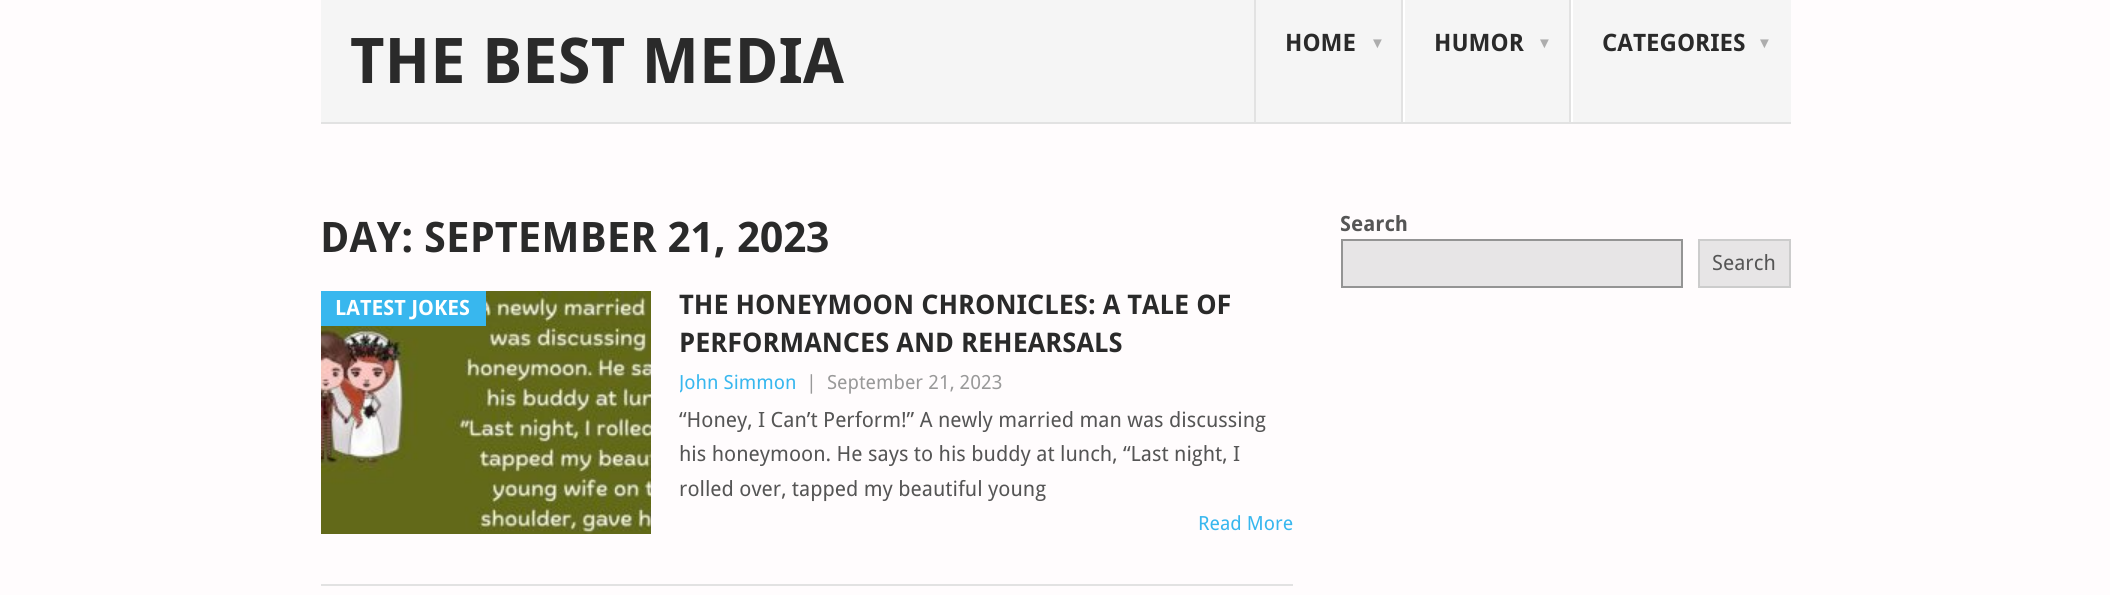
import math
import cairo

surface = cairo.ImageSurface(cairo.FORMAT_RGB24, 2110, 595)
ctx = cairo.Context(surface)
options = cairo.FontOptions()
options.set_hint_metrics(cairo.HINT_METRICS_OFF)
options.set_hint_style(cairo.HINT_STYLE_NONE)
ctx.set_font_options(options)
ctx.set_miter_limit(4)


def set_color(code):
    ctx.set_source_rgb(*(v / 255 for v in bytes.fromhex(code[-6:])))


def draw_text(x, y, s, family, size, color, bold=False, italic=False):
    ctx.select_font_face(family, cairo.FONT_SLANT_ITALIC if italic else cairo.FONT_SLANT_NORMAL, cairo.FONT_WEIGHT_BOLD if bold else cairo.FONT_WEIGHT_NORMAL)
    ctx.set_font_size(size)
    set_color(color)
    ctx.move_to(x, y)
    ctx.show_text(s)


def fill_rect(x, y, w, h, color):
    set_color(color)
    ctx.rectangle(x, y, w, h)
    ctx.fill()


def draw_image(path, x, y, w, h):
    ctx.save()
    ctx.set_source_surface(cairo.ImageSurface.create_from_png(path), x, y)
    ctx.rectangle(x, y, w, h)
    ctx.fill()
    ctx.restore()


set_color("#fffcfd")
ctx.paint()
fill_rect(321, 0, 1470, 122, "#f5f5f5")
draw_text(350, 83, "THE BEST MEDIA", "Droid Sans", 63, "#2a2a2a", bold=True)
fill_rect(1401, 0, 2, 123, "#e2e2e2")
fill_rect(1254, 0, 2, 123, "#e2e2e2")
draw_text(1285, 51, "HOME", "Droid Sans", 24, "#2a2a2a", bold=True)
draw_text(1370, 48, "▼", "Liberation Sans", 15, "#adadad", bold=True)
fill_rect(1569, 0, 2, 123, "#e2e2e2")
fill_rect(1403, 0, 2, 123, "#ffffff")
draw_text(1434, 51, "HUMOR", "Droid Sans", 24, "#2a2a2a", bold=True)
draw_text(1537, 48, "▼", "Liberation Sans", 15, "#adadad", bold=True)
fill_rect(1571, 0, 2, 123, "#ffffff")
draw_text(1602, 51, "CATEGORIES", "Droid Sans", 24, "#2a2a2a", bold=True)
draw_text(1757, 48, "▼", "Liberation Sans", 15, "#adadad", bold=True)
fill_rect(321, 122, 1470, 2, "#e2e2e2")
draw_text(320, 252, "DAY: SEPTEMBER 21, 2023", "Droid Sans", 42, "#2a2a2a", bold=True)
fill_rect(321, 584, 972, 2, "#e2e2e2")
draw_image("assets/img1.png", 321, 291, 330, 243)
fill_rect(321, 291, 165, 35, "#38b7ee")
draw_text(335, 315, "LATEST JOKES", "Droid Sans", 21, "#ffffff", bold=True)
draw_text(679, 314, "THE HONEYMOON CHRONICLES: A TALE OF", "Droid Sans", 27, "#2a2a2a", bold=True)
draw_text(679, 352, "PERFORMANCES AND REHEARSALS", "Droid Sans", 27, "#2a2a2a", bold=True)
ctx.save()
ctx.rectangle(680, 285, 613, 116)
ctx.clip()
draw_text(679, 389, "John Simmon", "Droid Sans", 19.5, "#38b7ee")
ctx.restore()
draw_text(806, 389, "|", "Droid Sans", 19.5, "#999999")
draw_text(827, 389, "September 21, 2023", "Droid Sans", 19.5, "#999999")
draw_text(679, 427, "“Honey, I Can’t Perform!” A newly married man was discussing", "Droid Sans", 21, "#555555")
draw_text(679, 461, "his honeymoon. He says to his buddy at lunch, “Last night, I", "Droid Sans", 21, "#555555")
draw_text(679, 496, "rolled over, tapped my beautiful young", "Droid Sans", 21, "#555555")
draw_text(1198, 530, "Read More", "Droid Sans", 19.5, "#38b7ee")
draw_text(1340, 231, "Search", "Droid Sans", 21, "#555555", bold=True)
set_color("#e7e5e6")
ctx.rectangle(1342, 240, 340, 47)
ctx.fill_preserve()
set_color("#949494")
ctx.stroke()
set_color("#e7e5e6")
ctx.rectangle(1699, 240, 91, 47)
ctx.fill_preserve()
set_color("#cccccc")
ctx.stroke()
draw_text(1712, 270, "Search", "Droid Sans", 21, "#555555")
surface.write_to_png("output.png")
